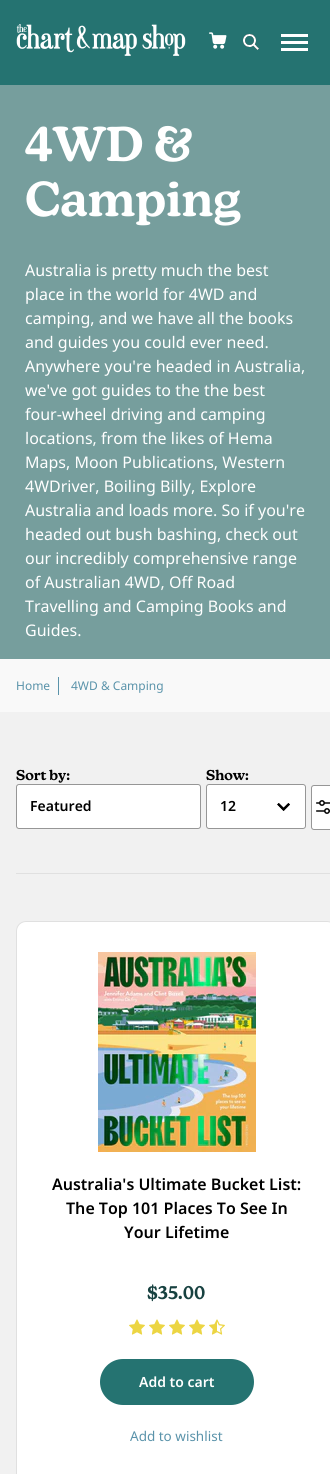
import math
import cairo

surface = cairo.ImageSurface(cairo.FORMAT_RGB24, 330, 1474)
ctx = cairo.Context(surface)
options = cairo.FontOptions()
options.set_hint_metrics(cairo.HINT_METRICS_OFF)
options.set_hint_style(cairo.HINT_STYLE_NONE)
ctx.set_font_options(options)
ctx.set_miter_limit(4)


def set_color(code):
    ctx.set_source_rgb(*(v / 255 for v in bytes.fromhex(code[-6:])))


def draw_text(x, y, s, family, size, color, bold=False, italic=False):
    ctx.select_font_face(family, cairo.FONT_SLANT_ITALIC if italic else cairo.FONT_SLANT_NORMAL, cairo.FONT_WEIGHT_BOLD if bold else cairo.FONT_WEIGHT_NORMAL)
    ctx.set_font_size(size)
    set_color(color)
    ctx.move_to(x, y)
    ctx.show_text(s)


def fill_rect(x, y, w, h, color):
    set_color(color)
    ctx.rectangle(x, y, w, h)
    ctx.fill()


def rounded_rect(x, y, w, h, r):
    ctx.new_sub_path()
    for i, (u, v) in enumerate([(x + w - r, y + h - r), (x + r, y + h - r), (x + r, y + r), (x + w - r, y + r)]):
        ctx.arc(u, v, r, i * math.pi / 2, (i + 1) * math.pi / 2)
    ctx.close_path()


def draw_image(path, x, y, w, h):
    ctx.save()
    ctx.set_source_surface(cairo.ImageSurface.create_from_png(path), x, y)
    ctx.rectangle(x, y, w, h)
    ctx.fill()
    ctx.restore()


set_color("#769e9d")
ctx.paint()
fill_rect(0, 0, 330, 85, "#257371")
draw_image("assets/img1.png", 16, 24, 170, 32)
draw_image("assets/img2.png", 209, 32, 18, 17)
draw_image("assets/img3.png", 243, 34, 16, 16)
fill_rect(281, 34, 27, 3, "#ffffff")
fill_rect(281, 41, 27, 3, "#ffffff")
fill_rect(281, 48, 27, 3, "#ffffff")
draw_text(25, 161, "4WD &", "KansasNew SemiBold", 48, "#ffffff")
draw_text(25, 216, "Camping", "KansasNew SemiBold", 48, "#ffffff")
draw_text(25, 276, "Australia is pretty much the best", "Noto Sans", 16, "#ffffff")
draw_text(25, 300, "place in the world for 4WD and", "Noto Sans", 16, "#ffffff")
draw_text(25, 324, "camping, and we have all the books", "Noto Sans", 16, "#ffffff")
draw_text(25, 348, "and guides you could ever need.", "Noto Sans", 16, "#ffffff")
draw_text(25, 372, "Anywhere you're headed in Australia,", "Noto Sans", 16, "#ffffff")
draw_text(25, 396, "we've got guides to the the best", "Noto Sans", 16, "#ffffff")
draw_text(25, 420, "four-wheel driving and camping", "Noto Sans", 16, "#ffffff")
draw_text(25, 444, "locations, from the likes of Hema", "Noto Sans", 16, "#ffffff")
draw_text(25, 468, "Maps, Moon Publications, Western", "Noto Sans", 16, "#ffffff")
draw_text(25, 492, "4WDriver, Boiling Billy, Explore", "Noto Sans", 16, "#ffffff")
draw_text(25, 516, "Australia and loads more. So if you're", "Noto Sans", 16, "#ffffff")
draw_text(25, 540, "headed out bush bashing, check out", "Noto Sans", 16, "#ffffff")
draw_text(25, 564, "our incredibly comprehensive range", "Noto Sans", 16, "#ffffff")
draw_text(25, 588, "of Australian 4WD, Off Road", "Noto Sans", 16, "#ffffff")
draw_text(25, 612, "Travelling and Camping Books and", "Noto Sans", 16, "#ffffff")
draw_text(25, 636, "Guides.", "Noto Sans", 16, "#ffffff")
fill_rect(0, 659, 330, 53, "#f9f9f9")
draw_text(16, 690, "Home", "Noto Sans", 12, "#5a93aa")
fill_rect(58, 677, 1, 18, "#5a93aa")
draw_text(71, 690, "4WD & Camping", "Noto Sans", 12, "#5a93aa")
fill_rect(0, 712, 330, 762, "#f1f1f1")
fill_rect(16, 873, 314, 1, "#e0e0e0")
draw_text(16, 780, "Sort by:", "KansasNew SemiBold", 14, "#000000")
set_color("#ffffff")
rounded_rect(16.5, 784.5, 184, 44, 2.5)
ctx.fill_preserve()
set_color("#969696")
ctx.set_line_width(1)
ctx.stroke()
draw_text(30, 811, "Featured", "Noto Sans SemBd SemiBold", 14, "#000000")
draw_text(206, 780, "Show:", "KansasNew SemiBold", 14, "#000000")
set_color("#ffffff")
rounded_rect(206, 784, 100, 45, 3)
ctx.fill()
draw_image("assets/img4.png", 277, 803, 13, 8)
rounded_rect(206.5, 784.5, 99, 44, 2.5)
set_color("#969696")
ctx.stroke()
draw_text(220, 811, "12", "Noto Sans SemBd SemiBold", 14, "#000000")
set_color("#ffffff")
rounded_rect(311.5, 785.5, 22, 44, 2.5)
ctx.fill_preserve()
set_color("#969696")
ctx.stroke()
draw_image("assets/img5.png", 316, 800, 14, 14)
set_color("#ffffff")
rounded_rect(16.5, 921.5, 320, 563, 9.5)
ctx.fill_preserve()
set_color("#e0e0e0")
ctx.stroke()
draw_image("assets/img6.png", 98, 952, 158, 200)
draw_text(52, 1190, "Australia's Ultimate Bucket List:", "Noto Sans SemBd SemiBold", 16, "#000000")
draw_text(66, 1214, "The Top 101 Places To See In", "Noto Sans SemBd SemiBold", 16, "#000000")
draw_text(124, 1238, "Your Lifetime", "Noto Sans SemBd SemiBold", 16, "#000000")
draw_text(147, 1299, "$35.00", "KansasNew SemiBold", 18, "#174140")
draw_image("assets/img7.png", 129, 1319, 16, 16)
draw_image("assets/img7.png", 149, 1319, 16, 16)
draw_image("assets/img7.png", 169, 1319, 16, 16)
draw_image("assets/img7.png", 189, 1319, 16, 16)
draw_image("assets/img8.png", 209, 1319, 16, 16)
set_color("#257371")
rounded_rect(100, 1359, 154, 46, 23)
ctx.fill()
draw_text(139, 1387, "Add to cart", "Noto Sans SemBd SemiBold", 14, "#ffffff")
draw_text(130, 1441, "Add to wishlist", "Noto Sans", 13.5, "#5a93aa")
surface.write_to_png("output.png")
